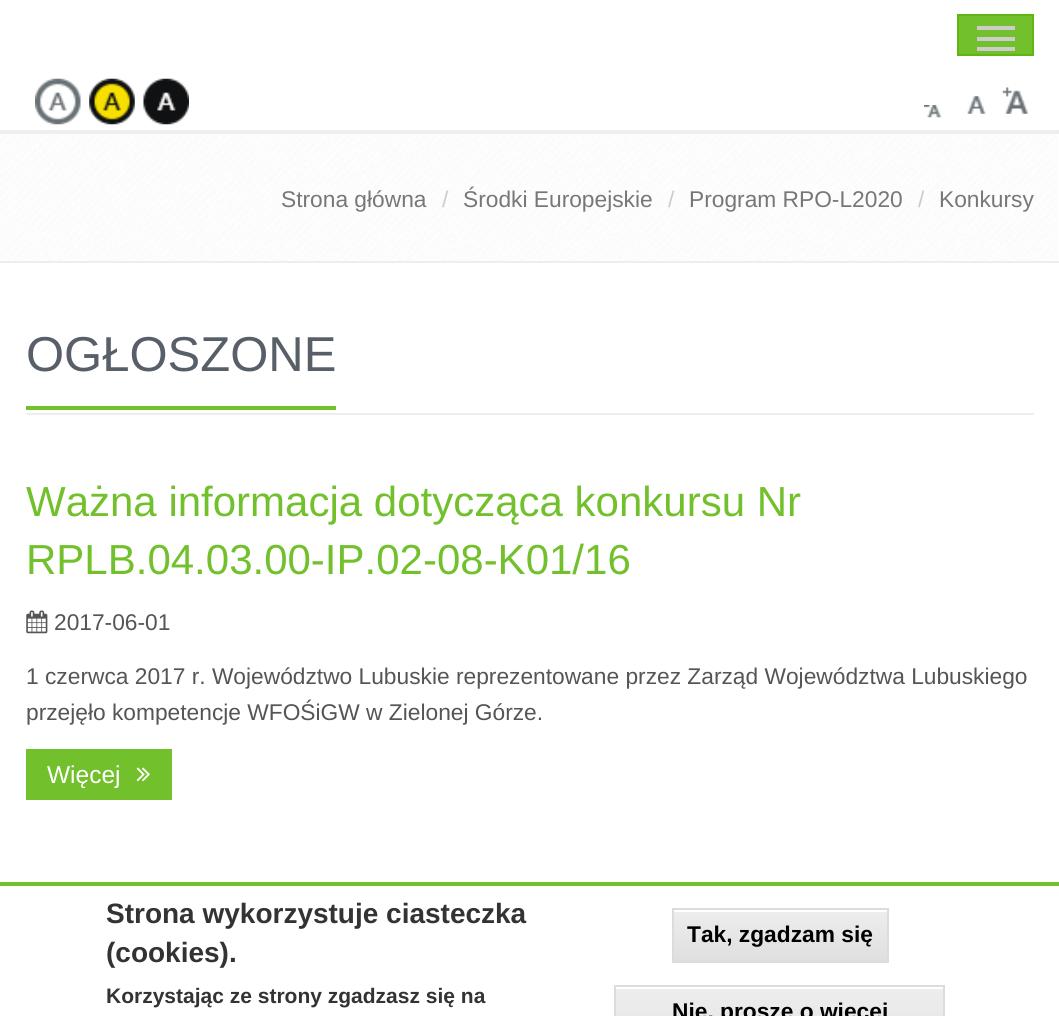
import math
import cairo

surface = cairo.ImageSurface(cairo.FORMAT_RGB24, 1059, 1016)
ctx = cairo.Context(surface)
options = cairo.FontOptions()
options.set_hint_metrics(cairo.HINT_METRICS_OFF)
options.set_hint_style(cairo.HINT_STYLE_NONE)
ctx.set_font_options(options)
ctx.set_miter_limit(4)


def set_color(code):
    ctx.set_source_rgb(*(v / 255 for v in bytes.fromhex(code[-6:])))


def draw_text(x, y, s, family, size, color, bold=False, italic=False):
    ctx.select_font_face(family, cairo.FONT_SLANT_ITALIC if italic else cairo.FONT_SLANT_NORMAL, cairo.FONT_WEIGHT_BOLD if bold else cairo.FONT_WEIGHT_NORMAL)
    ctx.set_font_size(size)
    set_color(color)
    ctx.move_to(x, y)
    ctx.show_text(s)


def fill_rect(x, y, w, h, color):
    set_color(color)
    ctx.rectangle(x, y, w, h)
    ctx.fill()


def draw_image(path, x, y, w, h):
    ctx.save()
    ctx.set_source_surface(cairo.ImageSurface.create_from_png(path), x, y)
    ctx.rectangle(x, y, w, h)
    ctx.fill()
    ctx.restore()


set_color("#ffffff")
ctx.paint()
fill_rect(0, 130, 1059, 4, "#eeeeee")
set_color("#72c02c")
ctx.rectangle(958, 15, 75, 40)
ctx.fill_preserve()
set_color("#5fb611")
ctx.stroke()
fill_rect(977, 26, 38, 4, "#cccccc")
fill_rect(977, 37, 38, 4, "#cccccc")
fill_rect(977, 47, 38, 4, "#cccccc")
draw_image("assets/img1.png", 35, 78, 46, 47)
draw_image("assets/img2.png", 89, 78, 46, 47)
draw_image("assets/img3.png", 143, 78, 46, 47)
draw_image("assets/img4.png", 924, 105, 18, 13)
draw_image("assets/img5.png", 967, 96, 19, 18)
draw_image("assets/img6.png", 1002, 87, 27, 27)
draw_image("assets/img7.png", 0, 134, 1058, 127)
fill_rect(0, 261, 1059, 2, "#eeeeee")
draw_text(281, 207, "Strona główna", "Liberation Sans", 22.75, "#777777")
draw_text(442, 207, "/", "Liberation Sans", 22.75, "#cccccc")
draw_text(463, 207, "Środki Europejskie", "Liberation Sans", 22.75, "#777777")
draw_text(668, 207, "/", "Liberation Sans", 22.75, "#cccccc")
draw_text(689, 207, "Program RPO-L2020", "Liberation Sans", 22.75, "#777777")
draw_text(918, 207, "/", "Liberation Sans", 22.75, "#cccccc")
draw_text(939, 207, "Konkursy", "Liberation Sans", 22.75, "#777777")
fill_rect(26, 413, 1008, 2, "#eeeeee")
draw_text(26, 371, "OGŁOSZONE", "Liberation Sans", 49, "#585f69")
fill_rect(26, 406, 310, 4, "#72c02c")
draw_text(26, 516, "Ważna informacja dotycząca konkursu Nr", "Liberation Sans", 42, "#72c02c")
draw_text(26, 574, "RPLB.04.03.00-IP.02-08-K01/16", "Liberation Sans", 42, "#72c02c")
draw_image("assets/img8.png", 26, 610, 22, 24)
draw_text(54, 630, "2017-06-01", "Liberation Sans", 22.75, "#555555")
draw_text(26, 684, "1 czerwca 2017 r. Województwo Lubuskie reprezentowane przez Zarząd Województwa Lubuskiego", "Liberation Sans", 22.75, "#555555")
draw_text(26, 720, "przejęło kompetencje WFOŚiGW w Zielonej Górze.", "Liberation Sans", 22.75, "#555555")
fill_rect(26, 749, 146, 51, "#72c02c")
draw_text(47, 783, "Więcej", "Liberation Sans", 24.5, "#ffffff")
draw_image("assets/img9.png", 136, 767, 14, 15)
fill_rect(0, 882, 1059, 4, "#72c02c")
draw_text(106, 923, "Strona wykorzystuje ciasteczka", "Liberation Sans", 28, "#333333", bold=True)
draw_text(106, 962, "(cookies).", "Liberation Sans", 28, "#333333", bold=True)
draw_text(106, 1003, "Korzystając ze strony zgadzasz się na", "Liberation Sans", 21, "#333333", bold=True)
gradient = cairo.LinearGradient(674, 910, 674, 961)
gradient.add_color_stop_rgba(0.05, 0.929, 0.929, 0.929, 1)
gradient.add_color_stop_rgba(1, 0.875, 0.875, 0.875, 1)
ctx.set_source(gradient)
ctx.rectangle(674, 912, 213, 49)
ctx.fill()
ctx.rectangle(673, 909, 215, 53)
set_color("#dcdcdc")
ctx.stroke()
draw_text(687, 942, "Tak, zgadzam się", "Liberation Sans", 22.75, "#000000", bold=True)
gradient = cairo.LinearGradient(616, 987, 616, 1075)
gradient.add_color_stop_rgba(0.05, 0.929, 0.929, 0.929, 1)
gradient.add_color_stop_rgba(1, 0.875, 0.875, 0.875, 1)
ctx.set_source(gradient)
ctx.rectangle(616, 989, 327, 27)
ctx.fill()
ctx.rectangle(615, 986, 329, 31)
set_color("#dcdcdc")
ctx.stroke()
draw_text(672, 1019, "Nie, proszę o więcej", "Liberation Sans", 22.75, "#000000", bold=True)
surface.write_to_png("output.png")
